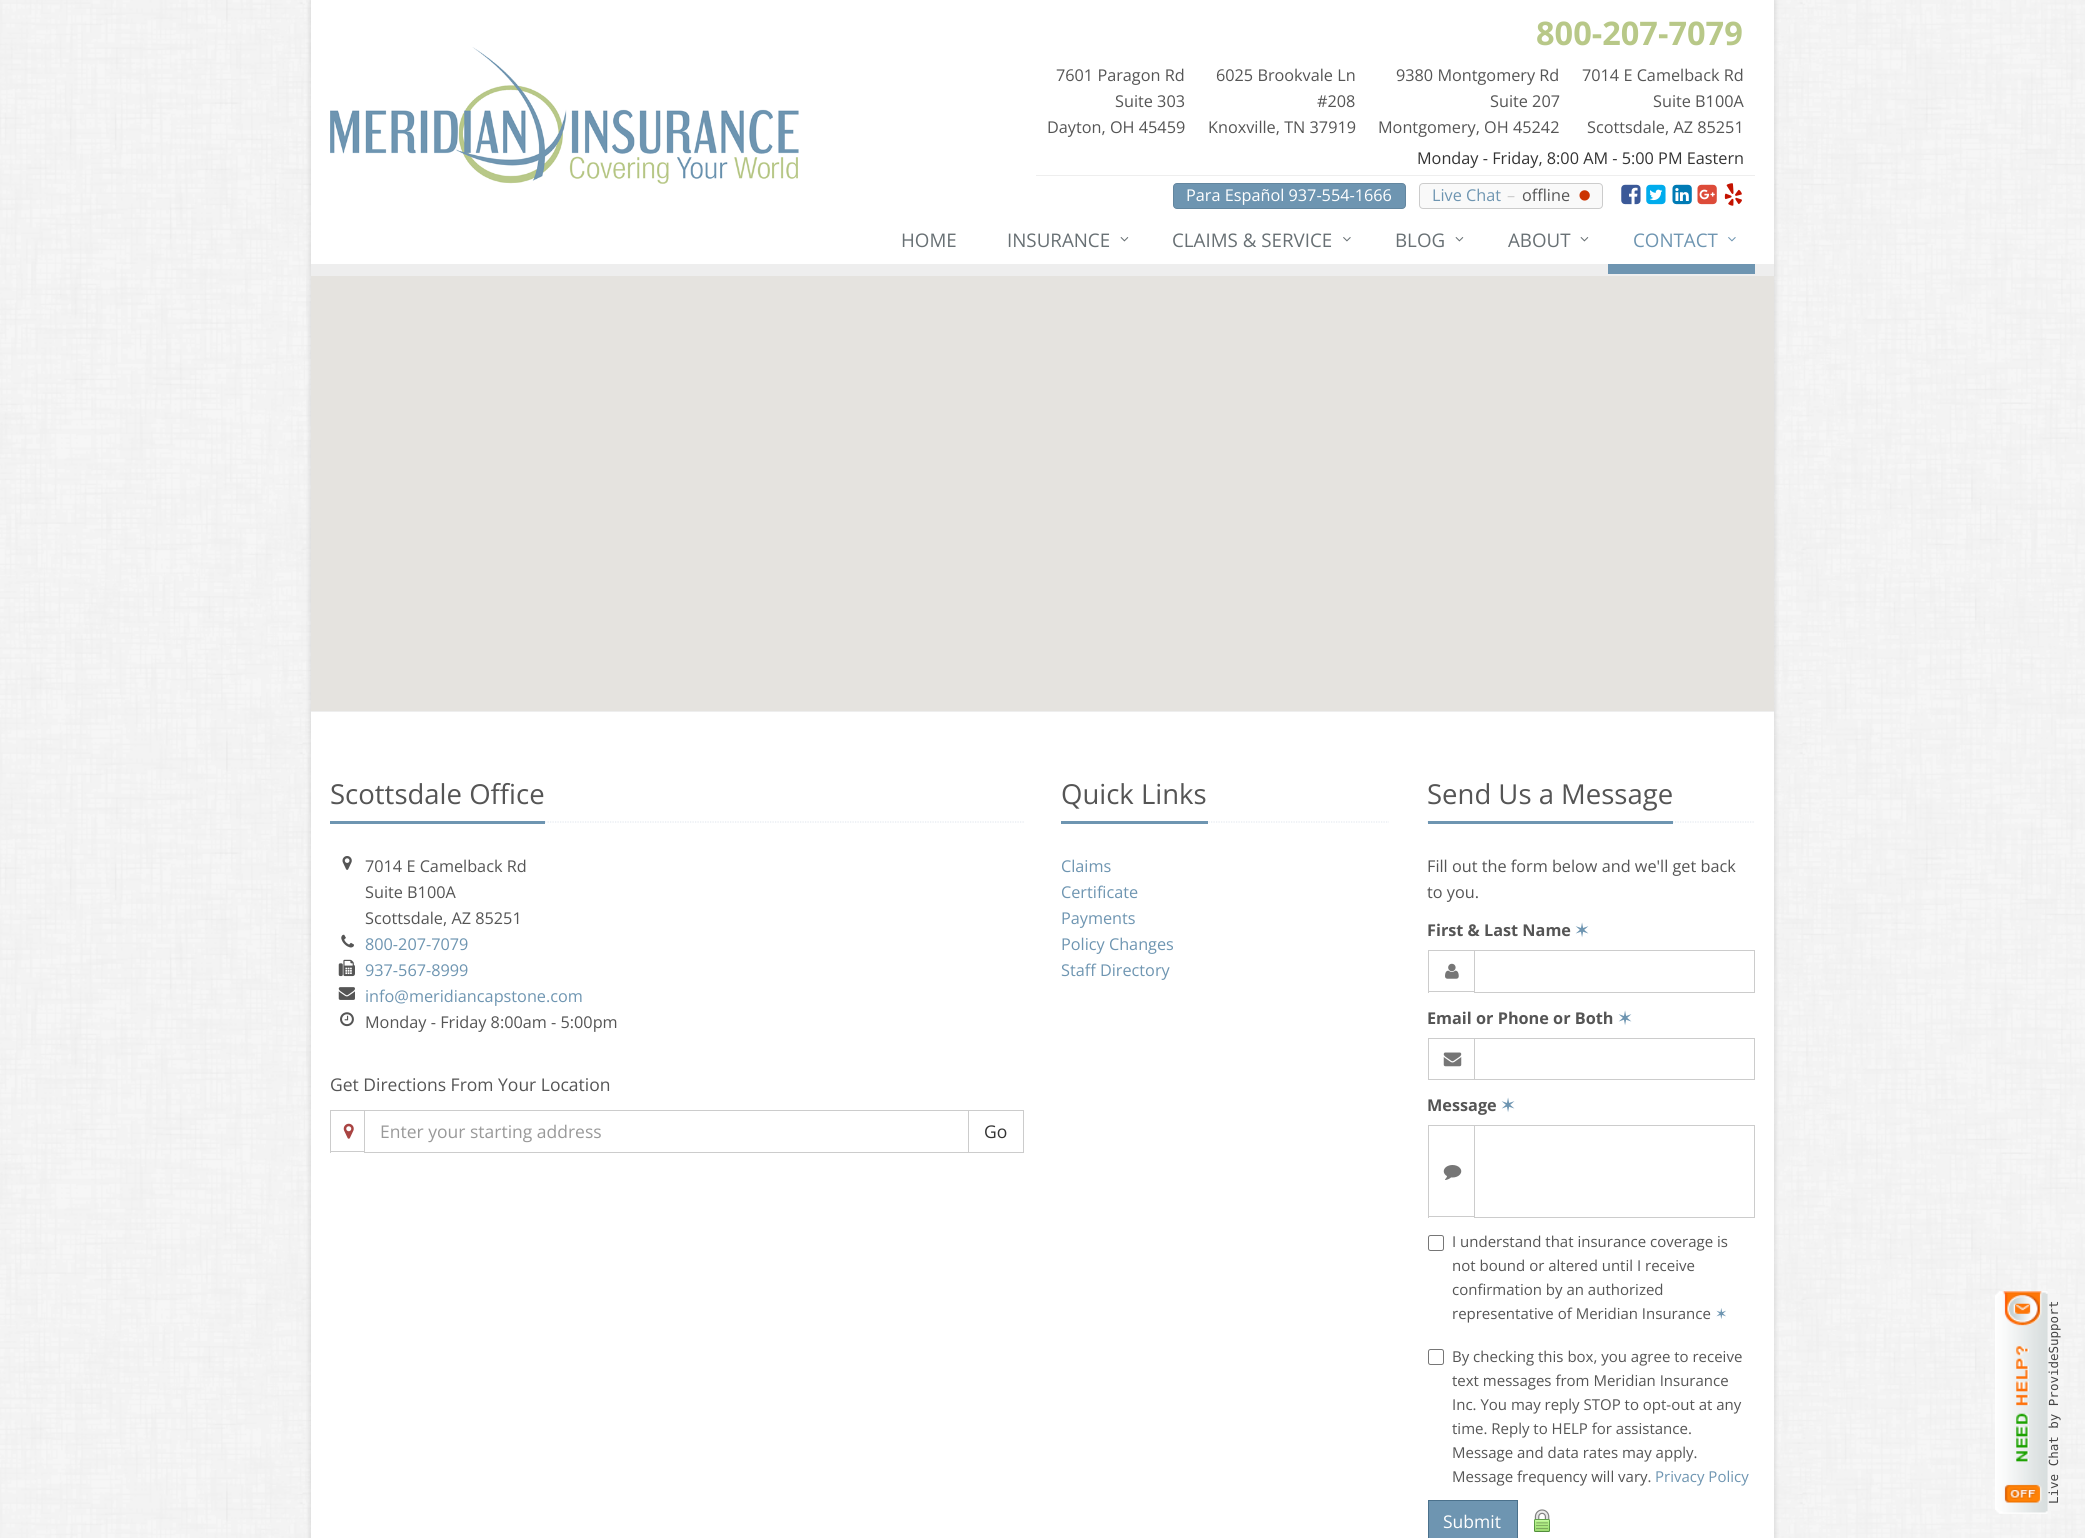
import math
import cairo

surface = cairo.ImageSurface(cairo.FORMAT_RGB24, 2085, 1538)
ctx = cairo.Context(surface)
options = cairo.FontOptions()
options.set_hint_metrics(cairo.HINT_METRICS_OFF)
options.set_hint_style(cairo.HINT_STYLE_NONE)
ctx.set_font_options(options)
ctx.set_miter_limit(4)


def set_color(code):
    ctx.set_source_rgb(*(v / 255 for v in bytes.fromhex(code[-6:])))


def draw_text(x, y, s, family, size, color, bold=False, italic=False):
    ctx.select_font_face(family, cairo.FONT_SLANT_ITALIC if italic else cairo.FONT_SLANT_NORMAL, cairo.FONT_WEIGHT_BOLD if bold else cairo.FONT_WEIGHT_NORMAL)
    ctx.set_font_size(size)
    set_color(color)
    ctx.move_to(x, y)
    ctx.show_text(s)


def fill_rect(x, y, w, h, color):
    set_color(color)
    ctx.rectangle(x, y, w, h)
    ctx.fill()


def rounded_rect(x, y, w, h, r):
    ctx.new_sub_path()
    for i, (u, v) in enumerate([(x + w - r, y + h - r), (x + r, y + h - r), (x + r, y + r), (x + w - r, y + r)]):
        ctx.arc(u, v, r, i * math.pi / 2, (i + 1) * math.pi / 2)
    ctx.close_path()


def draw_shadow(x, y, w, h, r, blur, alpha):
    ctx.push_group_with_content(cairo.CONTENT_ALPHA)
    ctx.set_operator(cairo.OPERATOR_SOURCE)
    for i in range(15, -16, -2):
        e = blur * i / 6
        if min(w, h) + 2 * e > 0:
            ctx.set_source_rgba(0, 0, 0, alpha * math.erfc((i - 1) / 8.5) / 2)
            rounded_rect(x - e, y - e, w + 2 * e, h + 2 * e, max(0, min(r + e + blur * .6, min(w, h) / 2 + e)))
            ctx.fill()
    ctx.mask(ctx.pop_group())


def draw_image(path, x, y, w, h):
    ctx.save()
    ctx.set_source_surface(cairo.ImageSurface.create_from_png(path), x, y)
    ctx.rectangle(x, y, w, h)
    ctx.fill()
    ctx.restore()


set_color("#ffffff")
ctx.paint()
draw_image("assets/img1.png", 0, 0, 2085, 1538)
set_color("#000000")
draw_shadow(311, 0, 1463, 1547, 0, 3, 0.16)
fill_rect(311, 0, 1463, 1538, "#ffffff")
draw_image("assets/img2.png", 330, 47, 469, 137)
fill_rect(1036, 175, 719, 1, "#eeeeee")
draw_text(1536, 45, "800-207-7079", "Open Sans", 32.5, "#b8c888", bold=True)
draw_text(1056, 81, "7601 Paragon Rd", "Open Sans", 16.25, "#555555")
draw_text(1115, 107, "Suite 303", "Open Sans", 16.25, "#555555")
draw_text(1047, 133, "Dayton, OH 45459", "Open Sans", 16.25, "#555555")
draw_text(1216, 81, "6025 Brookvale Ln", "Open Sans", 16.25, "#555555")
draw_text(1317, 107, "#208", "Open Sans", 16.25, "#555555")
draw_text(1208, 133, "Knoxville, TN 37919", "Open Sans", 16.25, "#555555")
draw_text(1396, 81, "9380 Montgomery Rd", "Open Sans", 16.25, "#555555")
draw_text(1490, 107, "Suite 207", "Open Sans", 16.25, "#555555")
draw_text(1378, 133, "Montgomery, OH 45242", "Open Sans", 16.25, "#555555")
draw_text(1582, 81, "7014 E Camelback Rd", "Open Sans", 16.25, "#555555")
draw_text(1653, 107, "Suite B100A", "Open Sans", 16.25, "#555555")
draw_text(1587, 133, "Scottsdale, AZ 85251", "Open Sans", 16.25, "#555555")
draw_text(1417, 164, "Monday - Friday, 8:00 AM - 5:00 PM Eastern", "Open Sans", 16.25, "#333333")
set_color("#6e95b1")
rounded_rect(1173.5, 183.5, 232, 25, 3.5)
ctx.fill_preserve()
set_color("#63869f")
ctx.set_line_width(1)
ctx.stroke()
draw_text(1186, 201, "Para Español 937-554-1666", "Open Sans", 16.25, "#ffffff")
set_color("#f9f9f9")
rounded_rect(1419.5, 183.5, 183, 25, 3.5)
ctx.fill_preserve()
set_color("#cccccc")
ctx.stroke()
draw_text(1432, 201, "Live Chat", "Open Sans", 16.25, "#6e95b1")
draw_text(1507, 201, "–", "Open Sans", 16.25, "#cccccc")
draw_text(1522, 201, "offline", "Open Sans", 16.25, "#555555")
draw_text(1578, 208, "•", "Liberation Sans", 38, "#cc3300")
draw_image("assets/img3.png", 1621, 184, 20, 21)
draw_image("assets/img4.png", 1646, 184, 20, 21)
draw_image("assets/img5.png", 1672, 184, 20, 21)
draw_image("assets/img6.png", 1697, 184, 20, 21)
draw_image("assets/img7.png", 1724, 183, 18, 23)
draw_text(901, 247, "HOME", "Open Sans", 18.75, "#687074")
draw_text(1007, 247, "INSURANCE", "Open Sans", 18.75, "#687074")
draw_image("assets/img8.png", 1120, 237, 9, 5)
draw_text(1172, 247, "CLAIMS & SERVICE", "Open Sans", 18.75, "#687074")
draw_image("assets/img9.png", 1343, 237, 8, 5)
draw_text(1395, 247, "BLOG", "Open Sans", 18.75, "#687074")
draw_image("assets/img8.png", 1455, 237, 9, 5)
draw_text(1508, 247, "ABOUT", "Open Sans", 18.75, "#687074")
draw_image("assets/img8.png", 1580, 237, 9, 5)
fill_rect(311, 264, 1463, 12, "#eeeeee")
fill_rect(1608, 264, 147, 10, "#6e95b1")
draw_text(1633, 247, "CONTACT", "Open Sans", 18.75, "#6e95b1")
draw_image("assets/img10.png", 1728, 237, 8, 5)
fill_rect(311, 276, 1463, 435, "#e5e3df")
fill_rect(311, 711, 1463, 1, "#eeeeee")
ctx.new_path()
ctx.move_to(330, 822)
ctx.line_to(1024, 822)
set_color("#e4e9f0")
ctx.set_line_width(1.2)
ctx.set_dash([1.25, 1.25])
ctx.stroke()
fill_rect(330, 821, 215, 3, "#6e95b1")
draw_text(330, 804, "Scottsdale Office", "Open Sans", 27.5, "#555555")
draw_image("assets/img11.png", 342, 856, 10, 14)
draw_text(365, 872, "7014 E Camelback Rd", "Open Sans", 16.25, "#555555")
draw_text(365, 898, "Suite B100A", "Open Sans", 16.25, "#555555")
draw_text(365, 924, "Scottsdale, AZ 85251", "Open Sans", 16.25, "#555555")
draw_image("assets/img12.png", 341, 934, 13, 14)
draw_text(365, 950, "800-207-7079", "Open Sans", 16.25, "#6e95b1")
draw_image("assets/img13.png", 338, 959, 17, 18)
draw_text(365, 976, "937-567-8999", "Open Sans", 16.25, "#6e95b1")
draw_image("assets/img14.png", 338, 987, 17, 13)
draw_text(365, 1002, "info@meridiancapstone.com", "Open Sans", 16.25, "#6e95b1")
draw_image("assets/img15.png", 340, 1012, 14, 15)
draw_text(365, 1028, "Monday - Friday 8:00am - 5:00pm", "Open Sans", 16.25, "#555555")
draw_text(330, 1091, "Get Directions From Your Location", "Open Sans", 17.5, "#555555")
fill_rect(330, 1110, 34, 1, "#cccccc")
fill_rect(330, 1151, 34, 1, "#cccccc")
fill_rect(330, 1110, 1, 43, "#cccccc")
draw_image("assets/img16.png", 343, 1123, 11, 16)
ctx.rectangle(364.5, 1110.5, 604, 42)
ctx.set_line_width(1)
ctx.set_dash([])
ctx.stroke()
draw_text(380, 1138, "Enter your starting address", "Open Sans", 17.5, "#999999")
ctx.rectangle(968.5, 1110.5, 55, 42)
set_color("#cccccc")
ctx.stroke()
draw_text(984, 1138, "Go", "Open Sans", 17.5, "#333333")
ctx.new_path()
ctx.move_to(1061, 822)
ctx.line_to(1389, 822)
set_color("#e4e9f0")
ctx.set_line_width(1.2)
ctx.set_dash([1.25, 1.25])
ctx.stroke()
fill_rect(1061, 821, 147, 3, "#6e95b1")
draw_text(1061, 804, "Quick Links", "Open Sans", 27.5, "#555555")
draw_text(1061, 872, "Claims", "Open Sans", 16.25, "#6e95b1")
draw_text(1061, 898, "Certificate", "Open Sans", 16.25, "#6e95b1")
draw_text(1061, 924, "Payments", "Open Sans", 16.25, "#6e95b1")
draw_text(1061, 950, "Policy Changes", "Open Sans", 16.25, "#6e95b1")
draw_text(1061, 976, "Staff Directory", "Open Sans", 16.25, "#6e95b1")
ctx.new_path()
ctx.move_to(1427.5, 822)
ctx.line_to(1755, 822)
set_color("#e4e9f0")
ctx.stroke()
fill_rect(1428, 821, 245, 3, "#6e95b1")
draw_text(1427, 804, "Send Us a Message", "Open Sans", 27.5, "#555555")
draw_text(1427, 872, "Fill out the form below and we'll get back", "Open Sans", 16.25, "#555555")
draw_text(1427, 898, "to you.", "Open Sans", 16.25, "#555555")
draw_text(1427, 936, "First & Last Name", "Open Sans", 16.25, "#555555", bold=True)
draw_text(1575, 936, "✶", "DejaVu Sans", 16.25, "#6e95b1", bold=True)
fill_rect(1428, 950, 46, 1, "#cccccc")
fill_rect(1428, 991, 46, 1, "#cccccc")
fill_rect(1428, 950, 1, 43, "#cccccc")
draw_image("assets/img17.png", 1445, 963, 14, 16)
ctx.rectangle(1474.5, 950.5, 280, 42)
ctx.set_line_width(1)
ctx.set_dash([])
ctx.stroke()
draw_text(1427, 1024, "Email or Phone or Both", "Open Sans", 16.25, "#555555", bold=True)
draw_text(1618, 1024, "✶", "DejaVu Sans", 16.25, "#6e95b1", bold=True)
fill_rect(1428, 1038, 46, 1, "#cccccc")
fill_rect(1428, 1079, 46, 1, "#cccccc")
fill_rect(1428, 1038, 1, 42, "#cccccc")
draw_image("assets/img18.png", 1443, 1052, 19, 15)
ctx.rectangle(1474.5, 1038.5, 280, 41)
ctx.stroke()
draw_text(1427, 1111, "Message", "Open Sans", 16.25, "#555555", bold=True)
draw_text(1501, 1111, "✶", "DejaVu Sans", 16.25, "#6e95b1", bold=True)
fill_rect(1428, 1125, 46, 1, "#cccccc")
fill_rect(1428, 1216, 46, 1, "#cccccc")
fill_rect(1428, 1125, 1, 93, "#cccccc")
draw_image("assets/img19.png", 1443, 1165, 19, 15)
ctx.rectangle(1474.5, 1125.5, 280, 92)
ctx.stroke()
rounded_rect(1428.5, 1235.5, 15, 15, 2)
set_color("#767676")
ctx.stroke()
draw_text(1452, 1247, "I understand that insurance coverage is", "Open Sans", 15, "#555555")
draw_text(1452, 1271, "not bound or altered until I receive", "Open Sans", 15, "#555555")
draw_text(1452, 1295, "confirmation by an authorized", "Open Sans", 15, "#555555")
draw_text(1452, 1319, "representative of Meridian Insurance", "Open Sans", 15, "#555555")
draw_text(1715, 1319, "✶", "DejaVu Sans", 15, "#6e95b1")
rounded_rect(1428.5, 1349.5, 15, 15, 2)
set_color("#767676")
ctx.stroke()
draw_text(1452, 1362, "By checking this box, you agree to receive", "Open Sans", 15, "#555555")
draw_text(1452, 1386, "text messages from Meridian Insurance", "Open Sans", 15, "#555555")
draw_text(1452, 1410, "Inc. You may reply STOP to opt-out at any", "Open Sans", 15, "#555555")
draw_text(1452, 1434, "time. Reply to HELP for assistance.", "Open Sans", 15, "#555555")
draw_text(1452, 1458, "Message and data rates may apply.", "Open Sans", 15, "#555555")
draw_text(1452, 1482, "Message frequency will vary.", "Open Sans", 15, "#555555")
draw_text(1655, 1482, "Privacy Policy", "Open Sans", 15, "#6e95b1")
ctx.rectangle(1428.5, 1500.5, 89, 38)
ctx.fill_preserve()
set_color("#4b718c")
ctx.stroke()
draw_text(1443, 1528, "Submit", "Open Sans", 17.5, "#ffffff")
draw_image("assets/img20.png", 1534, 1509, 16, 23)
draw_image("assets/img21.png", 1995, 1291, 53, 223)
fill_rect(2048, 1294, 12, 217, "#f5f5f5")
ctx.save()
ctx.translate(2058, 1504)
ctx.rotate(-90 * math.pi / 180)
draw_text(0, 0, "Live Chat by ProvideSupport", "DejaVu Sans Mono", 12.5, "#444444")
ctx.restore()
surface.write_to_png("output.png")
